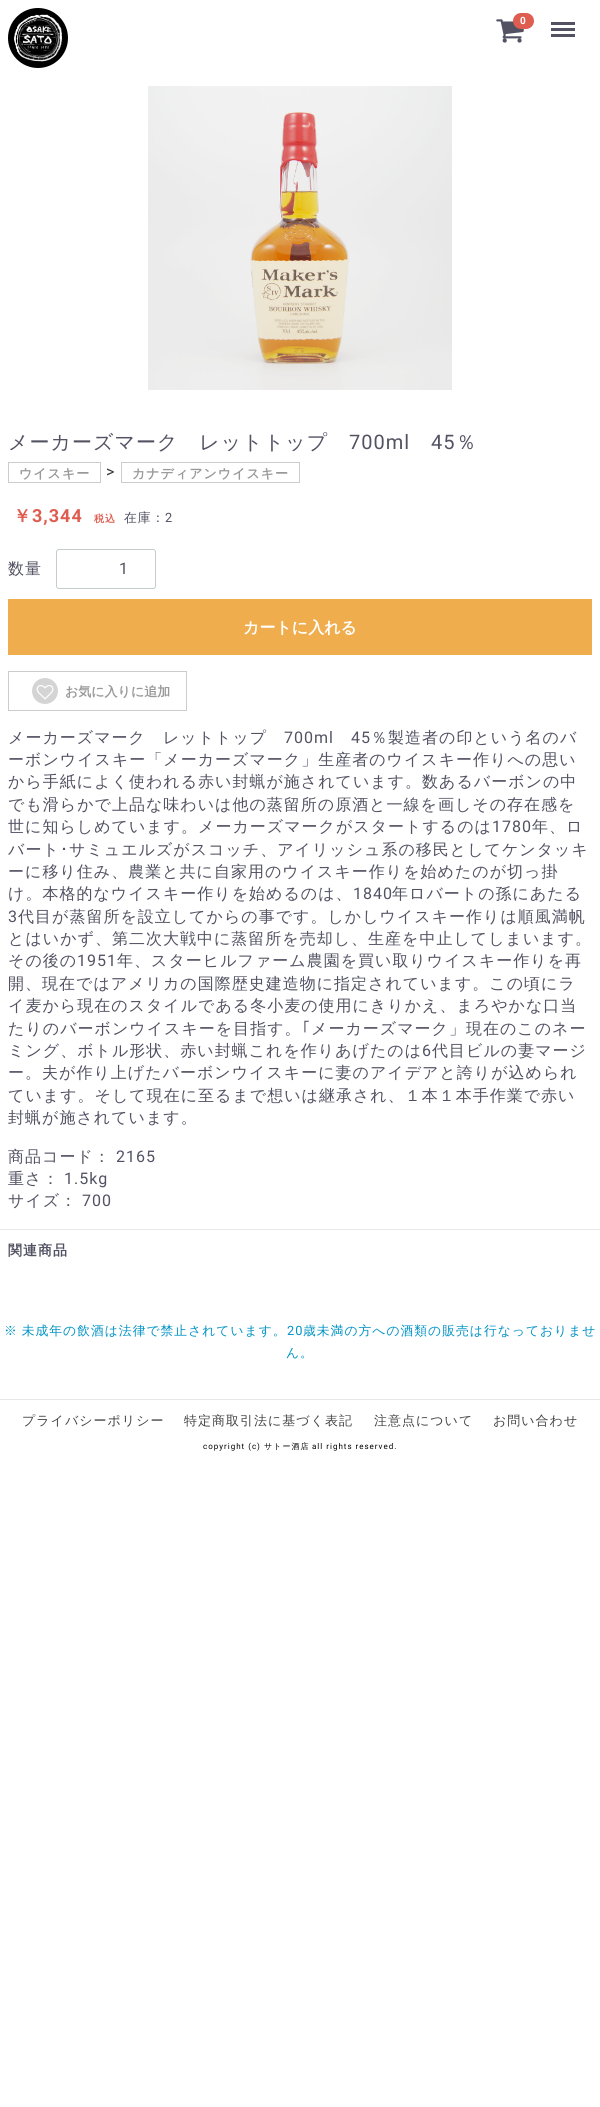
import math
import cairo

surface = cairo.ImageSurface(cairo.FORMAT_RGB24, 600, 2107)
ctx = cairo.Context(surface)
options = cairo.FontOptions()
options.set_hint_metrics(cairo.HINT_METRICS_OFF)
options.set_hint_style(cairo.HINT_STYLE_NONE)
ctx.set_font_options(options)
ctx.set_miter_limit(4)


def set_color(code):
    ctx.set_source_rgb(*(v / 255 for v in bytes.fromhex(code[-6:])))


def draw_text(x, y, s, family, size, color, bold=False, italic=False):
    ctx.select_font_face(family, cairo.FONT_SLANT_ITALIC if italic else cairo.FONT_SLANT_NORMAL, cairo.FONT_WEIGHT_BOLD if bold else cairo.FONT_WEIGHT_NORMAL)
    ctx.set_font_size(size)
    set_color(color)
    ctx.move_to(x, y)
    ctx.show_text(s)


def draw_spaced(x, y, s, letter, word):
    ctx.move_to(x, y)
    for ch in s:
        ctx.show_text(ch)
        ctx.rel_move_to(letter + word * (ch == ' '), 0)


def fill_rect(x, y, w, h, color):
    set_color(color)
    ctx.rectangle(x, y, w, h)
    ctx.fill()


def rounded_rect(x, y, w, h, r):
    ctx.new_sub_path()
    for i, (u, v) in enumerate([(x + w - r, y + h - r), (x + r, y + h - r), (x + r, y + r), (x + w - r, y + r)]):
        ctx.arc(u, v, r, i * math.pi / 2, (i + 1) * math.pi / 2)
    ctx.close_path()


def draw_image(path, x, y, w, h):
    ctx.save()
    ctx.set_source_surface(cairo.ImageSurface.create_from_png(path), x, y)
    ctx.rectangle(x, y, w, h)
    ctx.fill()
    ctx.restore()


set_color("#ffffff")
ctx.paint()
set_color("#000000")
ctx.arc(38, 38, 30, 0, 2 * math.pi)
ctx.fill()
draw_image("assets/img1.png", 14, 14, 48, 48)
draw_image("assets/img2.png", 496, 19, 28, 24)
set_color("#de5d50")
rounded_rect(513, 13, 21, 16, 8)
ctx.fill()
ctx.select_font_face("Roboto", cairo.FONT_SLANT_NORMAL, cairo.FONT_WEIGHT_BOLD)
ctx.set_font_size(10)
set_color("#ffffff")
draw_spaced(520, 24, "0", 1, 0)
fill_rect(551, 28, 24, 3, "#525263")
fill_rect(551, 22, 24, 3, "#525263")
fill_rect(551, 34, 24, 3, "#525263")
draw_image("assets/img3.png", 148, 86, 304, 304)
ctx.select_font_face("WenQuanYi Zen Hei Medium")
ctx.set_font_size(20)
draw_spaced(8, 449, "メーカーズマーク　レットトップ", 1, 0)
ctx.select_font_face("Roboto")
draw_spaced(349, 449, "700ml", 1, 0)
draw_spaced(431, 449, "45", 1, 0)
ctx.select_font_face("WenQuanYi Zen Hei Medium")
draw_spaced(456, 449, "％", 1, 0)
ctx.rectangle(8.5, 462.5, 92, 20)
set_color("#cccccc")
ctx.set_line_width(1)
ctx.stroke()
ctx.select_font_face("WenQuanYi Zen Hei", cairo.FONT_SLANT_NORMAL, cairo.FONT_WEIGHT_BOLD)
ctx.set_font_size(13)
set_color("#999999")
draw_spaced(19, 478, "ウイスキー", 1, 0)
ctx.select_font_face("Roboto")
ctx.set_font_size(16)
set_color("#333333")
draw_spaced(106, 477, ">", 1, 0)
ctx.rectangle(121.5, 462.5, 178, 20)
set_color("#cccccc")
ctx.stroke()
ctx.select_font_face("WenQuanYi Zen Hei", cairo.FONT_SLANT_NORMAL, cairo.FONT_WEIGHT_BOLD)
ctx.set_font_size(13)
set_color("#999999")
draw_spaced(132, 478, "カナディアンウイスキー", 1, 0)
ctx.set_font_size(18)
set_color("#de5d50")
draw_spaced(13, 522, "￥", 1, 0)
ctx.select_font_face("Roboto", cairo.FONT_SLANT_NORMAL, cairo.FONT_WEIGHT_BOLD)
draw_spaced(32, 522, "3,344", 1, 0)
ctx.select_font_face("WenQuanYi Zen Hei", cairo.FONT_SLANT_NORMAL, cairo.FONT_WEIGHT_BOLD)
ctx.set_font_size(10)
draw_spaced(94, 522, "税込", 1, 0)
ctx.select_font_face("WenQuanYi Zen Hei Medium")
ctx.set_font_size(12.8)
set_color("#525263")
draw_spaced(124, 522, "在庫：", 1, 0)
ctx.select_font_face("Roboto")
draw_spaced(165, 522, "2", 1, 0)
ctx.select_font_face("WenQuanYi Zen Hei Medium")
ctx.set_font_size(16)
draw_spaced(8, 574, "数量", 1, 0)
rounded_rect(56.5, 549.5, 99, 39, 2.5)
set_color("#c4ccce")
ctx.stroke()
draw_text(119, 574, "1", "Roboto", 16, "#525263")
fill_rect(8, 599, 584, 56, "#f0ad4e")
draw_text(243, 633, "カートに入れる", "WenQuanYi Zen Hei", 16, "#ffffff", bold=True)
ctx.rectangle(8.5, 671.5, 178, 39)
set_color("#cccccc")
ctx.stroke()
draw_image("assets/img4.png", 32, 678, 26, 26)
draw_text(65, 696, "お気に入りに追加", "WenQuanYi Zen Hei", 13, "#999999", bold=True)
ctx.select_font_face("WenQuanYi Zen Hei Medium")
ctx.set_font_size(16)
set_color("#525263")
draw_spaced(8, 743, "メーカーズマーク　レットトップ", 1, 0)
ctx.select_font_face("Roboto")
draw_spaced(284, 743, "700ml", 1, 0)
draw_spaced(351, 743, "45", 1, 0)
ctx.select_font_face("WenQuanYi Zen Hei Medium")
draw_spaced(371, 743, "％製造者の印という名のバ", 1, 0)
draw_spaced(8, 765, "ーボンウイスキー「メーカーズマーク」生産者のウイスキー作りへの思い", 1, 0)
draw_spaced(8, 787, "から手紙によく使われる赤い封蝋が施されています。数あるバーボンの中", 1, 0)
draw_spaced(8, 810, "でも滑らかで上品な味わいは他の蒸留所の原酒と一線を画しその存在感を", 1, 0)
draw_spaced(8, 832, "世に知らしめています。メーカーズマークがスタートするのは", 1, 0)
ctx.select_font_face("Roboto")
draw_spaced(492, 832, "1780", 1, 0)
ctx.select_font_face("WenQuanYi Zen Hei Medium")
draw_spaced(532, 832, "年、ロ", 1, 0)
draw_spaced(8, 855, "バート", 1, 0)
ctx.select_font_face("IPAPGothic")
draw_spaced(60, 855, "･", 1, 0)
ctx.select_font_face("WenQuanYi Zen Hei Medium")
draw_spaced(69, 855, "サミュエルズがスコッチ、アイリッシュ系の移民としてケンタッキ", 1, 0)
draw_spaced(8, 877, "ーに移り住み、農業と共に自家用のウイスキー作りを始めたのが切っ掛", 1, 0)
draw_spaced(8, 899, "け。本格的なウイスキー作りを始めるのは、", 1, 0)
ctx.select_font_face("Roboto")
draw_spaced(353, 899, "1840", 1, 0)
ctx.select_font_face("WenQuanYi Zen Hei Medium")
draw_spaced(392, 899, "年ロバートの孫にあたる", 1, 0)
ctx.select_font_face("Roboto")
draw_spaced(8, 922, "3", 1, 0)
ctx.select_font_face("WenQuanYi Zen Hei Medium")
draw_spaced(18, 922, "代目が蒸留所を設立してからの事です。しかしウイスキー作りは順風満帆", 1, 0)
draw_spaced(8, 944, "とはいかず、第二次大戦中に蒸留所を売却し、生産を中止してしまいます。", 1, 0)
draw_spaced(8, 966, "その後の", 1, 0)
ctx.select_font_face("Roboto")
draw_spaced(77, 966, "1951", 1, 0)
ctx.select_font_face("WenQuanYi Zen Hei Medium")
draw_spaced(117, 966, "年、スターヒルファーム農園を買い取りウイスキー作りを再", 1, 0)
draw_spaced(8, 989, "開、現在ではアメリカの国際歴史建造物に指定されています。この頃にラ", 1, 0)
draw_spaced(8, 1011, "イ麦から現在のスタイルである冬小麦の使用にきりかえ、まろやかな口当", 1, 0)
draw_spaced(8, 1034, "たりのバーボンウイスキーを目指す。", 1, 0)
ctx.select_font_face("IPAPGothic")
draw_spaced(302, 1034, "｢", 1, 0)
ctx.select_font_face("WenQuanYi Zen Hei Medium")
draw_spaced(311, 1034, "メーカーズマーク」現在のこのネー", 1, 0)
draw_spaced(8, 1056, "ミング、ボトル形状、赤い封蝋これを作りあげたのは", 1, 0)
ctx.select_font_face("Roboto")
draw_spaced(422, 1056, "6", 1, 0)
ctx.select_font_face("WenQuanYi Zen Hei Medium")
draw_spaced(432, 1056, "代目ビルの妻マージ", 1, 0)
draw_spaced(8, 1078, "ー。夫が作り上げたバーボンウイスキーに妻のアイデアと誇りが込められ", 1, 0)
draw_spaced(8, 1101, "ています。そして現在に至るまで想いは継承され、１本１本手作業で赤い", 1, 0)
draw_spaced(8, 1123, "封蝋が施されています。", 1, 0)
draw_spaced(8, 1162, "商品コード：", 1, 0)
ctx.select_font_face("Roboto")
draw_spaced(116, 1162, "2165", 1, 0)
ctx.select_font_face("WenQuanYi Zen Hei Medium")
draw_spaced(8, 1184, "重さ：", 1, 0)
ctx.select_font_face("Roboto")
draw_spaced(64, 1184, "1.5kg", 1, 0)
ctx.select_font_face("WenQuanYi Zen Hei Medium")
draw_spaced(8, 1206, "サイズ：", 1, 0)
ctx.select_font_face("Roboto")
draw_spaced(82, 1206, "700", 1, 0)
fill_rect(0, 1229, 600, 1, "#e8e8e8")
ctx.select_font_face("WenQuanYi Zen Hei", cairo.FONT_SLANT_NORMAL, cairo.FONT_WEIGHT_BOLD)
ctx.set_font_size(14)
set_color("#525263")
draw_spaced(8, 1255, "関連商品", 1, 0)
ctx.select_font_face("WenQuanYi Zen Hei Medium")
ctx.set_font_size(12.8)
set_color("#0092c4")
draw_spaced(4, 1335, "※ 未成年の飲酒は法律で禁止されています。", 1, -1)
ctx.select_font_face("Roboto")
draw_spaced(287, 1335, "20", 1, 0)
ctx.select_font_face("WenQuanYi Zen Hei Medium")
draw_spaced(303, 1335, "歳未満の方への酒類の販売は行なっておりませ", 1, 0)
draw_spaced(286, 1357, "ん。", 1, 0)
fill_rect(0, 1399, 600, 1, "#e8e8e8")
ctx.set_font_size(13)
set_color("#444444")
draw_spaced(22, 1425, "プライバシーポリシー", 1, 0)
draw_spaced(184, 1425, "特定商取引法に基づく表記", 1, 0)
draw_spaced(374, 1425, "注意点について", 1, 0)
draw_spaced(493, 1425, "お問い合わせ", 1, 0)
ctx.select_font_face("Roboto")
ctx.set_font_size(8)
set_color("#000000")
draw_spaced(203, 1449, "copyright (c)", 1, 0)
ctx.select_font_face("WenQuanYi Zen Hei Medium")
draw_spaced(264, 1449, "サトー酒店", 1, 0)
ctx.select_font_face("Roboto")
draw_spaced(312, 1449, "all rights reserved.", 1, 0)
surface.write_to_png("output.png")
